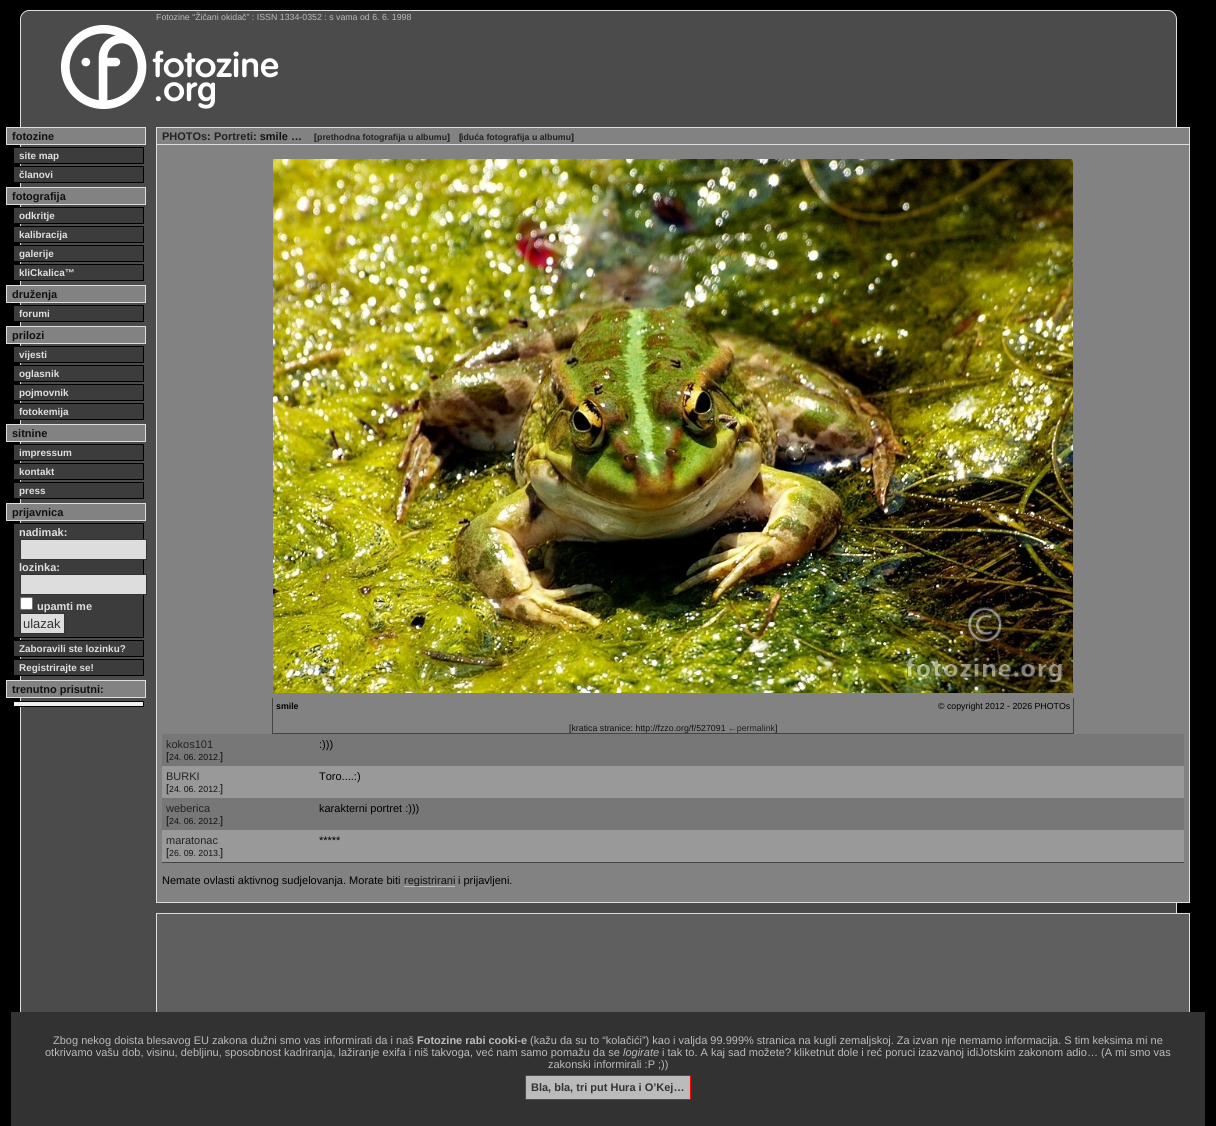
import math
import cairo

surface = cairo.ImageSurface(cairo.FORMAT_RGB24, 1216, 1126)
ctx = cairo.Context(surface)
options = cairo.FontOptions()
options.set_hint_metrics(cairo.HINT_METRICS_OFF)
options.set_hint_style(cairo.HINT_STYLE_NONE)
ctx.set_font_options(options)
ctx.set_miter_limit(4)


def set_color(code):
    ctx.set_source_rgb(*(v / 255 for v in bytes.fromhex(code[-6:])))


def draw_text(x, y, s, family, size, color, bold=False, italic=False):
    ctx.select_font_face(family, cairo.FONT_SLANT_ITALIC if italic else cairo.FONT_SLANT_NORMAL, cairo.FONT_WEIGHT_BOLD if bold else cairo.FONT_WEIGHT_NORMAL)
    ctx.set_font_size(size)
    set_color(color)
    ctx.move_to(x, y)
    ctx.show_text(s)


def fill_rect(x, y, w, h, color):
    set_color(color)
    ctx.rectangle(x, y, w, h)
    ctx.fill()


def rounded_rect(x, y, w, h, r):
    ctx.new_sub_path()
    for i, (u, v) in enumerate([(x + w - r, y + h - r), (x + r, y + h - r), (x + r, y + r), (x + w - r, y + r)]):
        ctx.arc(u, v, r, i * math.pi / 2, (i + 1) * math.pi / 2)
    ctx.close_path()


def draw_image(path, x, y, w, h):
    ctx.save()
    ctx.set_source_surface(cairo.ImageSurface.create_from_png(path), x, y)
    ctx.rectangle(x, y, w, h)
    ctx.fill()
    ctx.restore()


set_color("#000000")
ctx.paint()
set_color("#4b4b4b")
ctx.new_path()
ctx.move_to(29, 10.5)
ctx.line_to(1168, 10.5)
ctx.curve_to(1172.5, 10.5, 1176.5, 14.5, 1176.5, 19)
ctx.line_to(1176.5, 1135.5)
ctx.line_to(20.5, 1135.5)
ctx.line_to(20.5, 19)
ctx.curve_to(20.5, 14.5, 24.5, 10.5, 29, 10.5)
ctx.close_path()
ctx.fill_preserve()
set_color("#dedede")
ctx.set_line_width(1)
ctx.stroke()
draw_text(156, 20, "Fotozine “Žičani okidač” : ISSN 1334-0352 : s vama od 6. 6. 1998", "Liberation Sans", 8.8, "#bbbbbb")
draw_image("assets/img1.png", 61, 25, 218, 84)
set_color("#828282")
ctx.rectangle(6.5, 127.5, 139, 17)
ctx.fill_preserve()
set_color("#dedede")
ctx.stroke()
draw_text(12, 140, "fotozine", "Liberation Sans", 11, "#111111", bold=True)
set_color("#3c3c3c")
ctx.rectangle(13.5, 147.5, 130, 16)
ctx.fill_preserve()
set_color("#000000")
ctx.stroke()
draw_text(19, 159, "site map", "Liberation Sans", 9.9, "#dfdfdf", bold=True)
set_color("#3c3c3c")
ctx.rectangle(13.5, 166.5, 130, 16)
ctx.fill_preserve()
set_color("#000000")
ctx.stroke()
draw_text(19, 178, "članovi", "Liberation Sans", 9.9, "#dfdfdf", bold=True)
set_color("#828282")
ctx.rectangle(6.5, 187.5, 139, 17)
ctx.fill_preserve()
set_color("#dedede")
ctx.stroke()
draw_text(12, 200, "fotografija", "Liberation Sans", 11, "#111111", bold=True)
set_color("#3c3c3c")
ctx.rectangle(13.5, 207.5, 130, 16)
ctx.fill_preserve()
set_color("#000000")
ctx.stroke()
draw_text(19, 219, "odkritje", "Liberation Sans", 9.9, "#dfdfdf", bold=True)
set_color("#3c3c3c")
ctx.rectangle(13.5, 226.5, 130, 16)
ctx.fill_preserve()
set_color("#000000")
ctx.stroke()
draw_text(19, 238, "kalibracija", "Liberation Sans", 9.9, "#dfdfdf", bold=True)
set_color("#3c3c3c")
ctx.rectangle(13.5, 245.5, 130, 16)
ctx.fill_preserve()
set_color("#000000")
ctx.stroke()
draw_text(19, 257, "galerije", "Liberation Sans", 9.9, "#dfdfdf", bold=True)
set_color("#3c3c3c")
ctx.rectangle(13.5, 264.5, 130, 16)
ctx.fill_preserve()
set_color("#000000")
ctx.stroke()
draw_text(19, 276, "kliCkalica™", "Liberation Sans", 9.9, "#dfdfdf", bold=True)
set_color("#828282")
ctx.rectangle(6.5, 285.5, 139, 17)
ctx.fill_preserve()
set_color("#dedede")
ctx.stroke()
draw_text(12, 298, "druženja", "Liberation Sans", 11, "#111111", bold=True)
set_color("#3c3c3c")
ctx.rectangle(13.5, 305.5, 130, 16)
ctx.fill_preserve()
set_color("#000000")
ctx.stroke()
draw_text(19, 317, "forumi", "Liberation Sans", 9.9, "#dfdfdf", bold=True)
set_color("#828282")
ctx.rectangle(6.5, 326.5, 139, 17)
ctx.fill_preserve()
set_color("#dedede")
ctx.stroke()
draw_text(12, 339, "prilozi", "Liberation Sans", 11, "#111111", bold=True)
set_color("#3c3c3c")
ctx.rectangle(13.5, 346.5, 130, 16)
ctx.fill_preserve()
set_color("#000000")
ctx.stroke()
draw_text(19, 358, "vijesti", "Liberation Sans", 9.9, "#dfdfdf", bold=True)
set_color("#3c3c3c")
ctx.rectangle(13.5, 365.5, 130, 16)
ctx.fill_preserve()
set_color("#000000")
ctx.stroke()
draw_text(19, 377, "oglasnik", "Liberation Sans", 9.9, "#dfdfdf", bold=True)
set_color("#3c3c3c")
ctx.rectangle(13.5, 384.5, 130, 16)
ctx.fill_preserve()
set_color("#000000")
ctx.stroke()
draw_text(19, 396, "pojmovnik", "Liberation Sans", 9.9, "#dfdfdf", bold=True)
set_color("#3c3c3c")
ctx.rectangle(13.5, 403.5, 130, 16)
ctx.fill_preserve()
set_color("#000000")
ctx.stroke()
draw_text(19, 415, "fotokemija", "Liberation Sans", 9.9, "#dfdfdf", bold=True)
set_color("#828282")
ctx.rectangle(6.5, 424.5, 139, 17)
ctx.fill_preserve()
set_color("#dedede")
ctx.stroke()
draw_text(12, 437, "sitnine", "Liberation Sans", 11, "#111111", bold=True)
set_color("#3c3c3c")
ctx.rectangle(13.5, 444.5, 130, 16)
ctx.fill_preserve()
set_color("#000000")
ctx.stroke()
draw_text(19, 456, "impressum", "Liberation Sans", 9.9, "#dfdfdf", bold=True)
set_color("#3c3c3c")
ctx.rectangle(13.5, 463.5, 130, 16)
ctx.fill_preserve()
set_color("#000000")
ctx.stroke()
draw_text(19, 475, "kontakt", "Liberation Sans", 9.9, "#dfdfdf", bold=True)
set_color("#3c3c3c")
ctx.rectangle(13.5, 482.5, 130, 16)
ctx.fill_preserve()
set_color("#000000")
ctx.stroke()
draw_text(19, 494, "press", "Liberation Sans", 9.9, "#dfdfdf", bold=True)
set_color("#828282")
ctx.rectangle(6.5, 503.5, 139, 17)
ctx.fill_preserve()
set_color("#dedede")
ctx.stroke()
draw_text(12, 516, "prijavnica", "Liberation Sans", 11, "#111111", bold=True)
set_color("#3c3c3c")
ctx.rectangle(13.5, 523.5, 130, 114)
ctx.fill_preserve()
set_color("#000000")
ctx.stroke()
draw_text(19, 536, "nadimak:", "Liberation Sans", 11, "#dfdfdf", bold=True)
set_color("#dddddd")
ctx.rectangle(20.5, 539.5, 126, 20)
ctx.fill_preserve()
set_color("#333333")
ctx.stroke()
draw_text(19, 571, "lozinka:", "Liberation Sans", 11, "#dfdfdf", bold=True)
set_color("#dddddd")
ctx.rectangle(20.5, 574.5, 126, 20)
ctx.fill_preserve()
set_color("#333333")
ctx.stroke()
set_color("#ffffff")
rounded_rect(20.5, 597.5, 12, 12, 1.5)
ctx.fill_preserve()
set_color("#767676")
ctx.stroke()
draw_text(37, 610, "upamti me", "Liberation Sans", 11, "#dfdfdf", bold=True)
set_color("#dddddd")
ctx.rectangle(20.5, 613.5, 44, 20)
ctx.fill_preserve()
set_color("#333333")
ctx.stroke()
draw_text(23, 628, "ulazak", "Liberation Sans", 13, "#333333")
set_color("#3c3c3c")
ctx.rectangle(13.5, 640.5, 130, 16)
ctx.fill_preserve()
set_color("#000000")
ctx.stroke()
draw_text(19, 652, "Zaboravili ste lozinku?", "Liberation Sans", 9.9, "#dfdfdf", bold=True)
set_color("#3c3c3c")
ctx.rectangle(13.5, 659.5, 130, 16)
ctx.fill_preserve()
set_color("#000000")
ctx.stroke()
draw_text(19, 671, "Registrirajte se!", "Liberation Sans", 9.9, "#dfdfdf", bold=True)
set_color("#828282")
ctx.rectangle(6.5, 680.5, 139, 17)
ctx.fill_preserve()
set_color("#dedede")
ctx.stroke()
draw_text(12, 693, "trenutno prisutni:", "Liberation Sans", 11, "#111111", bold=True)
set_color("#eeeeee")
ctx.rectangle(13.5, 701.5, 130, 5)
ctx.fill_preserve()
set_color("#000000")
ctx.stroke()
set_color("#828282")
ctx.rectangle(156.5, 127.5, 1033, 775)
ctx.fill_preserve()
set_color("#dedede")
ctx.stroke()
fill_rect(157, 144, 1032, 1, "#dedede")
draw_text(162, 140, "PHOTOs", "Liberation Sans", 11, "#222222", bold=True)
draw_text(207, 140, ":", "Liberation Sans", 11, "#111111", bold=True)
draw_text(214, 140, "Portreti", "Liberation Sans", 11, "#222222", bold=True)
draw_text(253, 140, ": smile …", "Liberation Sans", 11, "#111111", bold=True)
draw_text(314, 140, "[", "Liberation Sans", 8.8, "#111111", bold=True)
draw_text(317, 140, "prethodna fotografija u albumu", "Liberation Sans", 8.8, "#222222", bold=True)
draw_text(447, 140, "]", "Liberation Sans", 8.8, "#111111", bold=True)
draw_text(459, 140, "[", "Liberation Sans", 8.8, "#111111", bold=True)
draw_text(461, 140, "iduća fotografija u albumu", "Liberation Sans", 8.8, "#222222", bold=True)
draw_text(571, 140, "]", "Liberation Sans", 8.8, "#111111", bold=True)
draw_image("assets/img2.png", 273, 159, 800, 534)
fill_rect(1073, 698, 1, 36, "#444444")
fill_rect(272, 733, 802, 1, "#444444")
fill_rect(272, 698, 1, 36, "#444444")
draw_text(276, 709, "smile", "Liberation Sans", 8.8, "#000000", bold=True)
draw_text(938, 709, "© copyright 2012 - 2026 PHOTOs", "Liberation Sans", 8.8, "#000000")
draw_text(569, 731, "[kratica stranice: http://fzzo.org/f/527091", "Liberation Sans", 8.8, "#111111")
draw_text(728, 731, "←permalink", "Liberation Sans", 8.8, "#222222")
draw_text(775, 731, "]", "Liberation Sans", 8.8, "#111111")
fill_rect(162, 862, 1022, 1, "#444444")
fill_rect(162, 734, 1022, 32, "#777777")
draw_text(166, 748, "kokos101", "Liberation Sans", 11, "#222222")
draw_text(166, 760, "[", "Liberation Sans", 11, "#111111")
draw_text(169, 760, "24. 06. 2012.", "Liberation Sans", 8.8, "#111111")
draw_text(220, 760, "]", "Liberation Sans", 11, "#111111")
draw_text(319, 748, ":)))", "Liberation Sans", 11, "#000000")
fill_rect(162, 766, 1022, 32, "#999999")
draw_text(166, 780, "BURKI", "Liberation Sans", 11, "#222222")
draw_text(166, 792, "[", "Liberation Sans", 11, "#111111")
draw_text(169, 792, "24. 06. 2012.", "Liberation Sans", 8.8, "#111111")
draw_text(220, 792, "]", "Liberation Sans", 11, "#111111")
draw_text(319, 780, "Toro....:)", "Liberation Sans", 11, "#000000")
fill_rect(162, 798, 1022, 32, "#777777")
draw_text(166, 812, "weberica", "Liberation Sans", 11, "#222222")
draw_text(166, 824, "[", "Liberation Sans", 11, "#111111")
draw_text(169, 824, "24. 06. 2012.", "Liberation Sans", 8.8, "#111111")
draw_text(220, 824, "]", "Liberation Sans", 11, "#111111")
draw_text(319, 812, "karakterni portret :)))", "Liberation Sans", 11, "#000000")
fill_rect(162, 830, 1022, 32, "#999999")
draw_text(166, 844, "maratonac", "Liberation Sans", 11, "#222222")
draw_text(166, 856, "[", "Liberation Sans", 11, "#111111")
draw_text(169, 856, "26. 09. 2013.", "Liberation Sans", 8.8, "#111111")
draw_text(220, 856, "]", "Liberation Sans", 11, "#111111")
draw_text(319, 844, "*****", "Liberation Sans", 11, "#000000")
draw_text(162, 884, "Nemate ovlasti aktivnog sudjelovanja. Morate biti", "Liberation Sans", 11, "#000000")
fill_rect(404, 886, 51, 1, "#bbbbbb")
draw_text(404, 884, "registrirani", "Liberation Sans", 11, "#111111")
draw_text(458, 884, "i prijavljeni.", "Liberation Sans", 11, "#000000")
fill_rect(157, 914, 1032, 98, "#5f5f5f")
ctx.rectangle(156.5, 913.5, 1033, 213)
set_color("#dedede")
ctx.stroke()
fill_rect(11, 1012, 1194, 114, "#323232")
draw_text(53, 1044, "Zbog nekog doista blesavog EU zakona dužni smo vas informirati da i naš", "Liberation Sans", 11, "#bbbbbb")
draw_text(417, 1044, "Fotozine rabi cooki-e", "Liberation Sans", 11, "#bbbbbb", bold=True)
draw_text(530, 1044, "(kažu da su to “kolačići”) kao i valjda 99.999% stranica na kugli zemaljskoj. Za izvan nje nemamo informacija. S tim keksima mi ne", "Liberation Sans", 11, "#bbbbbb")
draw_text(45, 1056, "otkrivamo vašu dob, visinu, debljinu, sposobnost kadriranja, lažiranje exifa i niš takvoga, već nam samo pomažu da se", "Liberation Sans", 11, "#bbbbbb")
draw_text(623, 1056, "logirate", "Liberation Sans", 11, "#bbbbbb", italic=True)
draw_text(662, 1056, "i tak to. A kaj sad možete? kliketnut dole i reć poruci izazvanoj idiJotskim zakonom adio… (A mi smo vas", "Liberation Sans", 11, "#bbbbbb")
draw_text(548, 1068, "zakonski informirali :P ;))", "Liberation Sans", 11, "#bbbbbb")
ctx.rectangle(525.5, 1075.5, 165, 24)
ctx.fill_preserve()
set_color("#ff0000")
ctx.stroke()
draw_text(531, 1091, "Bla, bla, tri put Hura i O’Kej…", "Liberation Sans", 11, "#333333", bold=True)
surface.write_to_png("output.png")
